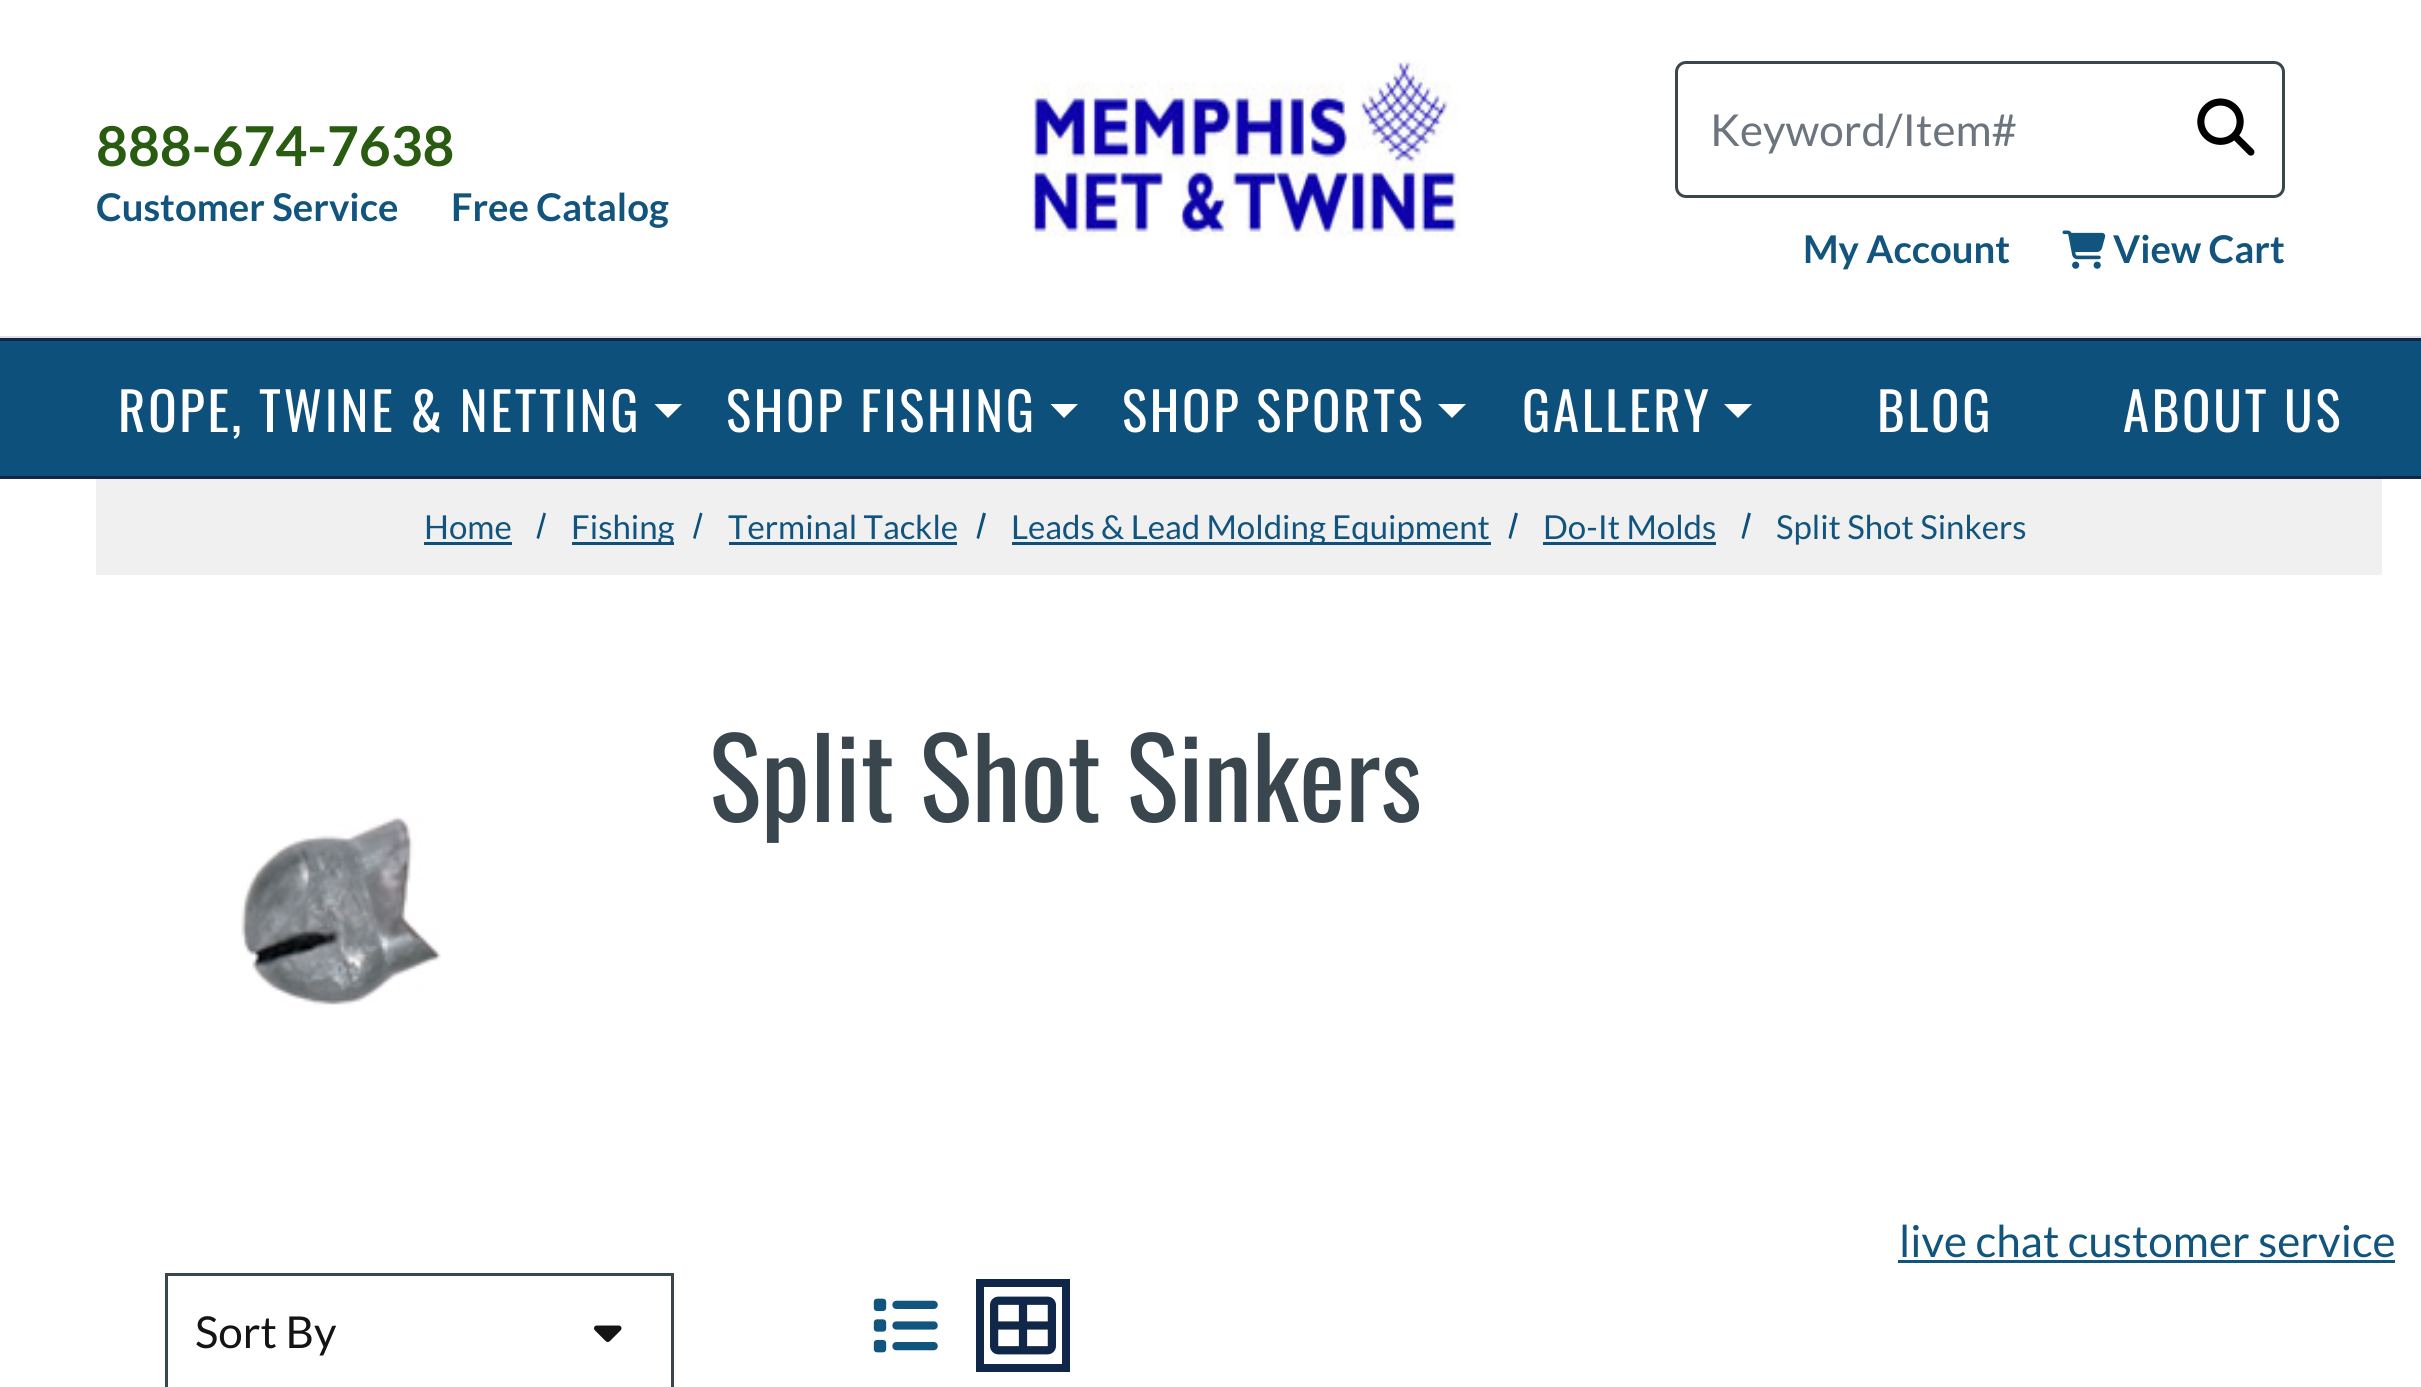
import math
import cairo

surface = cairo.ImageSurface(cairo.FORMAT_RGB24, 2421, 1387)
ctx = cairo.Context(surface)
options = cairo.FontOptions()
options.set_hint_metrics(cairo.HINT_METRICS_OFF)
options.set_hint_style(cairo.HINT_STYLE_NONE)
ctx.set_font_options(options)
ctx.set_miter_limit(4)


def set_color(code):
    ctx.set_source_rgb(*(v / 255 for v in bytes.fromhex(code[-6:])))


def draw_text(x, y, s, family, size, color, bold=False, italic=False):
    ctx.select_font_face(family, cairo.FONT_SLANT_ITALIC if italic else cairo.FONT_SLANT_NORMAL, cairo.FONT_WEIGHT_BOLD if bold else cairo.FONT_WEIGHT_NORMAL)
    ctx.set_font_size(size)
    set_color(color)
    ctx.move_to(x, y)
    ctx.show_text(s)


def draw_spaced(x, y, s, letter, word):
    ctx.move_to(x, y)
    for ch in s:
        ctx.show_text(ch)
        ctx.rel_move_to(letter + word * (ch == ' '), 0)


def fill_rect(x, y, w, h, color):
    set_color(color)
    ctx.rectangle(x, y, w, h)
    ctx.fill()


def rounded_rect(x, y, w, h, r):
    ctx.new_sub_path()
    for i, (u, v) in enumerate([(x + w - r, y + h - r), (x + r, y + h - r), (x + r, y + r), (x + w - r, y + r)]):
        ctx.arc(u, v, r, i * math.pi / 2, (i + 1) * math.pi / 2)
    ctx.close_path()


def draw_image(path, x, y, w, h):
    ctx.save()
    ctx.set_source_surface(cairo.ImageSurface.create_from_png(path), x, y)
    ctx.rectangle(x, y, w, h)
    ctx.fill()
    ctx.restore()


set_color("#ffffff")
ctx.paint()
fill_rect(0, 336, 2421, 2, "#dee2e6")
draw_text(96, 166, "888-674-7638", "Lato", 55, "#295b10", bold=True)
draw_text(96, 221, "Customer Service", "Lato", 38.25, "#11547e", bold=True)
draw_text(451, 221, "Free Catalog", "Lato", 38.25, "#11547e", bold=True)
draw_image("assets/img1.png", 1032, 60, 428, 178)
rounded_rect(1676.5, 62.5, 607, 134, 9.5)
set_color("#39464d")
ctx.set_line_width(3)
ctx.stroke()
draw_text(1710, 146, "Keyword/Item#", "Lato", 44, "#6c757d")
draw_image("assets/img2.png", 2197, 98, 58, 58)
draw_text(1803, 263, "My Account", "Lato", 38.25, "#11547e", bold=True)
draw_image("assets/img3.png", 2062, 230, 44, 39)
draw_text(2113, 263, "View Cart", "Lato", 38.25, "#11547e", bold=True)
fill_rect(0, 341, 2421, 135, "#0e507c")
fill_rect(0, 338, 2421, 3, "#112749")
fill_rect(0, 476, 2421, 3, "#112749")
ctx.select_font_face("Oswald")
ctx.set_font_size(52.75)
set_color("#ffffff")
draw_spaced(118, 432, "ROPE, TWINE & NETTING", 2.75, 0)
ctx.new_path()
ctx.move_to(654.5, 404)
ctx.line_to(682, 404)
ctx.line_to(668, 418)
ctx.close_path()
ctx.fill()
draw_spaced(726, 432, "SHOP FISHING", 2.75, 0)
ctx.new_path()
ctx.move_to(1050.5, 404)
ctx.line_to(1078, 404)
ctx.line_to(1064, 418)
ctx.close_path()
ctx.fill()
draw_spaced(1122, 432, "SHOP SPORTS", 2.75, 0)
ctx.new_path()
ctx.move_to(1438, 404)
ctx.line_to(1466, 404)
ctx.line_to(1452, 418)
ctx.close_path()
ctx.fill()
draw_spaced(1522, 432, "GALLERY", 2.75, 0)
ctx.new_path()
ctx.move_to(1724, 404)
ctx.line_to(1752, 404)
ctx.line_to(1738, 418)
ctx.close_path()
ctx.fill()
draw_spaced(1877, 432, "BLOG", 2.75, 0)
draw_spaced(2123, 432, "ABOUT US", 2.75, 0)
fill_rect(96, 479, 2286, 96, "#f0f0f0")
draw_text(424, 539, "Home", "Lato", 33, "#11547e")
fill_rect(424, 542, 88, 3, "#0e507c")
ctx.new_path()
ctx.move_to(543.5, 512.5)
ctx.line_to(546, 513.5)
ctx.line_to(539, 539)
ctx.line_to(536.5, 538)
ctx.close_path()
ctx.fill()
fill_rect(572, 542, 102, 3, "#0e507c")
draw_text(571, 539, "Fishing", "Lato", 33, "#11547e")
set_color("#0e507c")
ctx.new_path()
ctx.move_to(700, 512.5)
ctx.line_to(702.5, 513.5)
ctx.line_to(695.5, 539)
ctx.line_to(693, 538)
ctx.close_path()
ctx.fill()
draw_text(728, 539, "Terminal Tackle", "Lato", 33, "#11547e")
fill_rect(729, 542, 228, 3, "#0e507c")
ctx.new_path()
ctx.move_to(983, 512.5)
ctx.line_to(986, 513.5)
ctx.line_to(979, 539)
ctx.line_to(976.5, 538)
ctx.close_path()
ctx.fill()
fill_rect(1012, 542, 479, 3, "#0e507c")
draw_text(1011, 539, "Leads & Lead Molding Equipment", "Lato", 33, "#11547e")
set_color("#0e507c")
ctx.new_path()
ctx.move_to(1515, 512.5)
ctx.line_to(1518, 513.5)
ctx.line_to(1511, 539)
ctx.line_to(1508.5, 538)
ctx.close_path()
ctx.fill()
draw_text(1543, 539, "Do-It Molds", "Lato", 33, "#11547e")
fill_rect(1543, 542, 173, 3, "#0e507c")
ctx.new_path()
ctx.move_to(1748, 512.5)
ctx.line_to(1751, 513.5)
ctx.line_to(1744, 539)
ctx.line_to(1741.5, 538)
ctx.close_path()
ctx.fill()
draw_text(1776, 539, "Split Shot Sinkers", "Lato", 33, "#11547e")
draw_text(709, 822, "Split Shot Sinkers", "Oswald", 110, "#39464d")
draw_image("assets/img4.png", 241, 816, 200, 189)
ctx.rectangle(166.5, 1274.5, 506, 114)
ctx.stroke()
draw_text(195, 1348, "Sort By", "Lato", 44, "#141414")
draw_image("assets/img5.png", 594, 1325, 28, 17)
draw_image("assets/img6.png", 873, 1298, 65, 55)
ctx.rectangle(980, 1283, 86, 85)
set_color("#112749")
ctx.set_line_width(8)
ctx.stroke()
draw_image("assets/img7.png", 990, 1296, 66, 59)
draw_text(1899, 1257, "live chat customer service", "Lato", 44, "#11547e")
fill_rect(1898, 1260, 497, 3, "#11547e")
surface.write_to_png("output.png")
